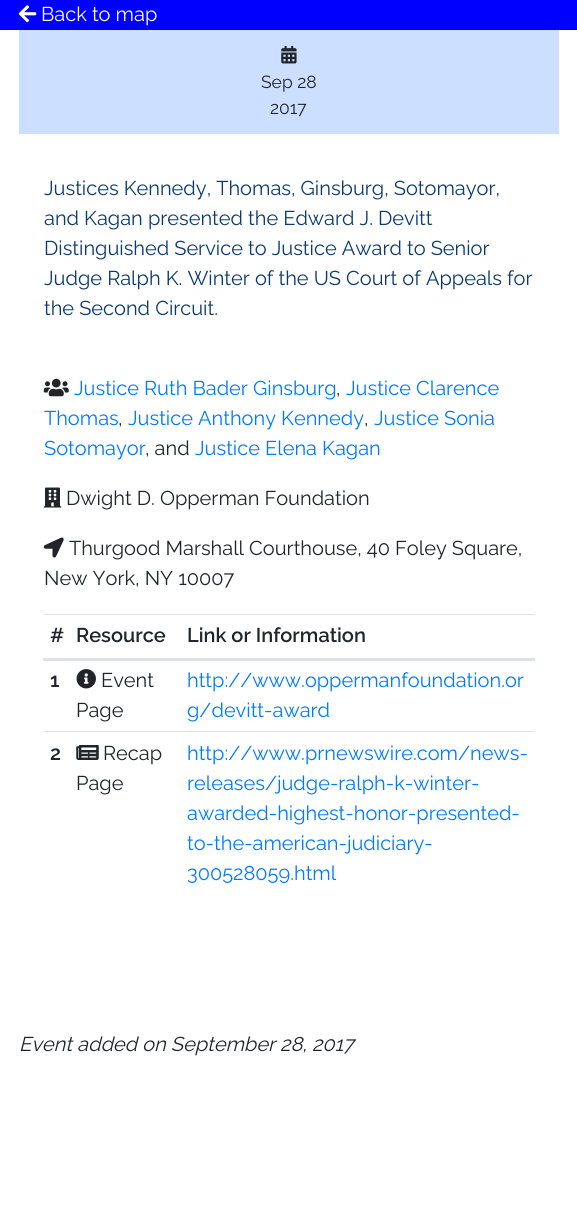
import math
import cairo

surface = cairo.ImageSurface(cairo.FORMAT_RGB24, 577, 1223)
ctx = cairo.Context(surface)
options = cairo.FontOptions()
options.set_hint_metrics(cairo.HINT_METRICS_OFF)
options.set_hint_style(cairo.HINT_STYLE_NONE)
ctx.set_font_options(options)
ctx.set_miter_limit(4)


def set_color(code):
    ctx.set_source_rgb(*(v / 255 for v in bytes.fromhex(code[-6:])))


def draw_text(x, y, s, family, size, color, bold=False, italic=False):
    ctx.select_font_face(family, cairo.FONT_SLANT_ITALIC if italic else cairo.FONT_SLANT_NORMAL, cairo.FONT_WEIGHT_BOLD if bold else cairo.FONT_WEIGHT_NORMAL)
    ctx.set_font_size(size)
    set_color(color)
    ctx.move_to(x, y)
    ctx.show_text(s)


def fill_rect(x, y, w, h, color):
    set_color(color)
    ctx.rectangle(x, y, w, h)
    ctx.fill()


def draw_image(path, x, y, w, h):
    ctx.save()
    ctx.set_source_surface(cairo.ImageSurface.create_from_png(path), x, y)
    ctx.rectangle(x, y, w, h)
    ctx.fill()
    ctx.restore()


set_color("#ffffff")
ctx.paint()
fill_rect(0, 0, 577, 30, "#0000ff")
draw_image("assets/img1.png", 18, 5, 19, 18)
draw_text(41, 21, "Back to map", "Raleway", 20, "#ffffff")
fill_rect(19, 30, 540, 104, "#ccdfff")
draw_image("assets/img2.png", 281, 45, 16, 19)
draw_text(261, 88, "Sep 28", "Raleway", 17.5, "#212529")
draw_text(270, 114, "2017", "Raleway", 17.5, "#212529")
draw_text(44, 195, "Justices Kennedy, Thomas, Ginsburg, Sotomayor,", "Raleway", 20, "#0b3a73")
draw_text(44, 225, "and Kagan presented the Edward J. Devitt", "Raleway", 20, "#0b3a73")
draw_text(44, 255, "Distinguished Service to Justice Award to Senior", "Raleway", 20, "#0b3a73")
draw_text(44, 285, "Judge Ralph K. Winter of the US Court of Appeals for", "Raleway", 20, "#0b3a73")
draw_text(44, 315, "the Second Circuit.", "Raleway", 20, "#0b3a73")
draw_image("assets/img3.png", 43, 378, 26, 19)
draw_text(74, 395, "Justice Ruth Bader Ginsburg", "Raleway", 20, "#007bff")
draw_text(336, 395, ",", "Raleway", 20, "#212529")
draw_text(346, 395, "Justice Clarence", "Raleway", 20, "#007bff")
draw_text(44, 425, "Thomas", "Raleway", 20, "#007bff")
draw_text(118, 425, ",", "Raleway", 20, "#212529")
draw_text(128, 425, "Justice Anthony Kennedy", "Raleway", 20, "#007bff")
draw_text(364, 425, ",", "Raleway", 20, "#212529")
draw_text(374, 425, "Justice Sonia", "Raleway", 20, "#007bff")
draw_text(44, 455, "Sotomayor", "Raleway", 20, "#007bff")
draw_text(145, 455, ", and", "Raleway", 20, "#212529")
draw_text(195, 455, "Justice Elena Kagan", "Raleway", 20, "#007bff")
draw_image("assets/img4.png", 43, 487, 19, 21)
draw_text(66, 505, "Dwight D. Opperman Foundation", "Raleway", 20, "#212529")
draw_image("assets/img5.png", 43, 537, 21, 21)
draw_text(69, 555, "Thurgood Marshall Courthouse, 40 Foley Square,", "Raleway", 20, "#212529")
draw_text(44, 585, "New York, NY 10007", "Raleway", 20, "#212529")
draw_text(50, 642, "#", "Raleway SemiBold", 20, "#212529")
draw_text(76, 642, "Resource", "Raleway SemiBold", 20, "#212529")
fill_rect(44, 614, 491, 1, "#dee2e6")
fill_rect(43, 658, 492, 3, "#dee2e6")
draw_text(187, 642, "Link or Information", "Raleway SemiBold", 20, "#212529")
draw_text(50, 687, "1", "Raleway SemiBold", 20, "#212529")
draw_image("assets/img6.png", 76, 669, 20, 20)
draw_text(101, 687, "Event", "Raleway", 20, "#212529")
draw_text(76, 717, "Page", "Raleway", 20, "#212529")
draw_text(187, 687, "http://www.oppermanfoundation.or", "Raleway", 20, "#007bff")
draw_text(187, 717, "g/devitt-award", "Raleway", 20, "#007bff")
draw_text(50, 760, "2", "Raleway SemiBold", 20, "#212529")
draw_image("assets/img7.png", 76, 745, 23, 15)
draw_text(103, 760, "Recap", "Raleway", 20, "#212529")
draw_text(76, 790, "Page", "Raleway", 20, "#212529")
fill_rect(44, 731, 491, 1, "#dee2e6")
draw_text(187, 760, "http://www.prnewswire.com/news-", "Raleway", 20, "#007bff")
draw_text(187, 790, "releases/judge-ralph-k-winter-", "Raleway", 20, "#007bff")
draw_text(187, 820, "awarded-highest-honor-presented-", "Raleway", 20, "#007bff")
draw_text(187, 850, "to-the-american-judiciary-", "Raleway", 20, "#007bff")
draw_text(187, 880, "300528059.html", "Raleway", 20, "#007bff")
draw_text(19, 1051, "Event added on September 28, 2017", "Raleway", 20, "#212529", italic=True)
surface.write_to_png("output.png")
